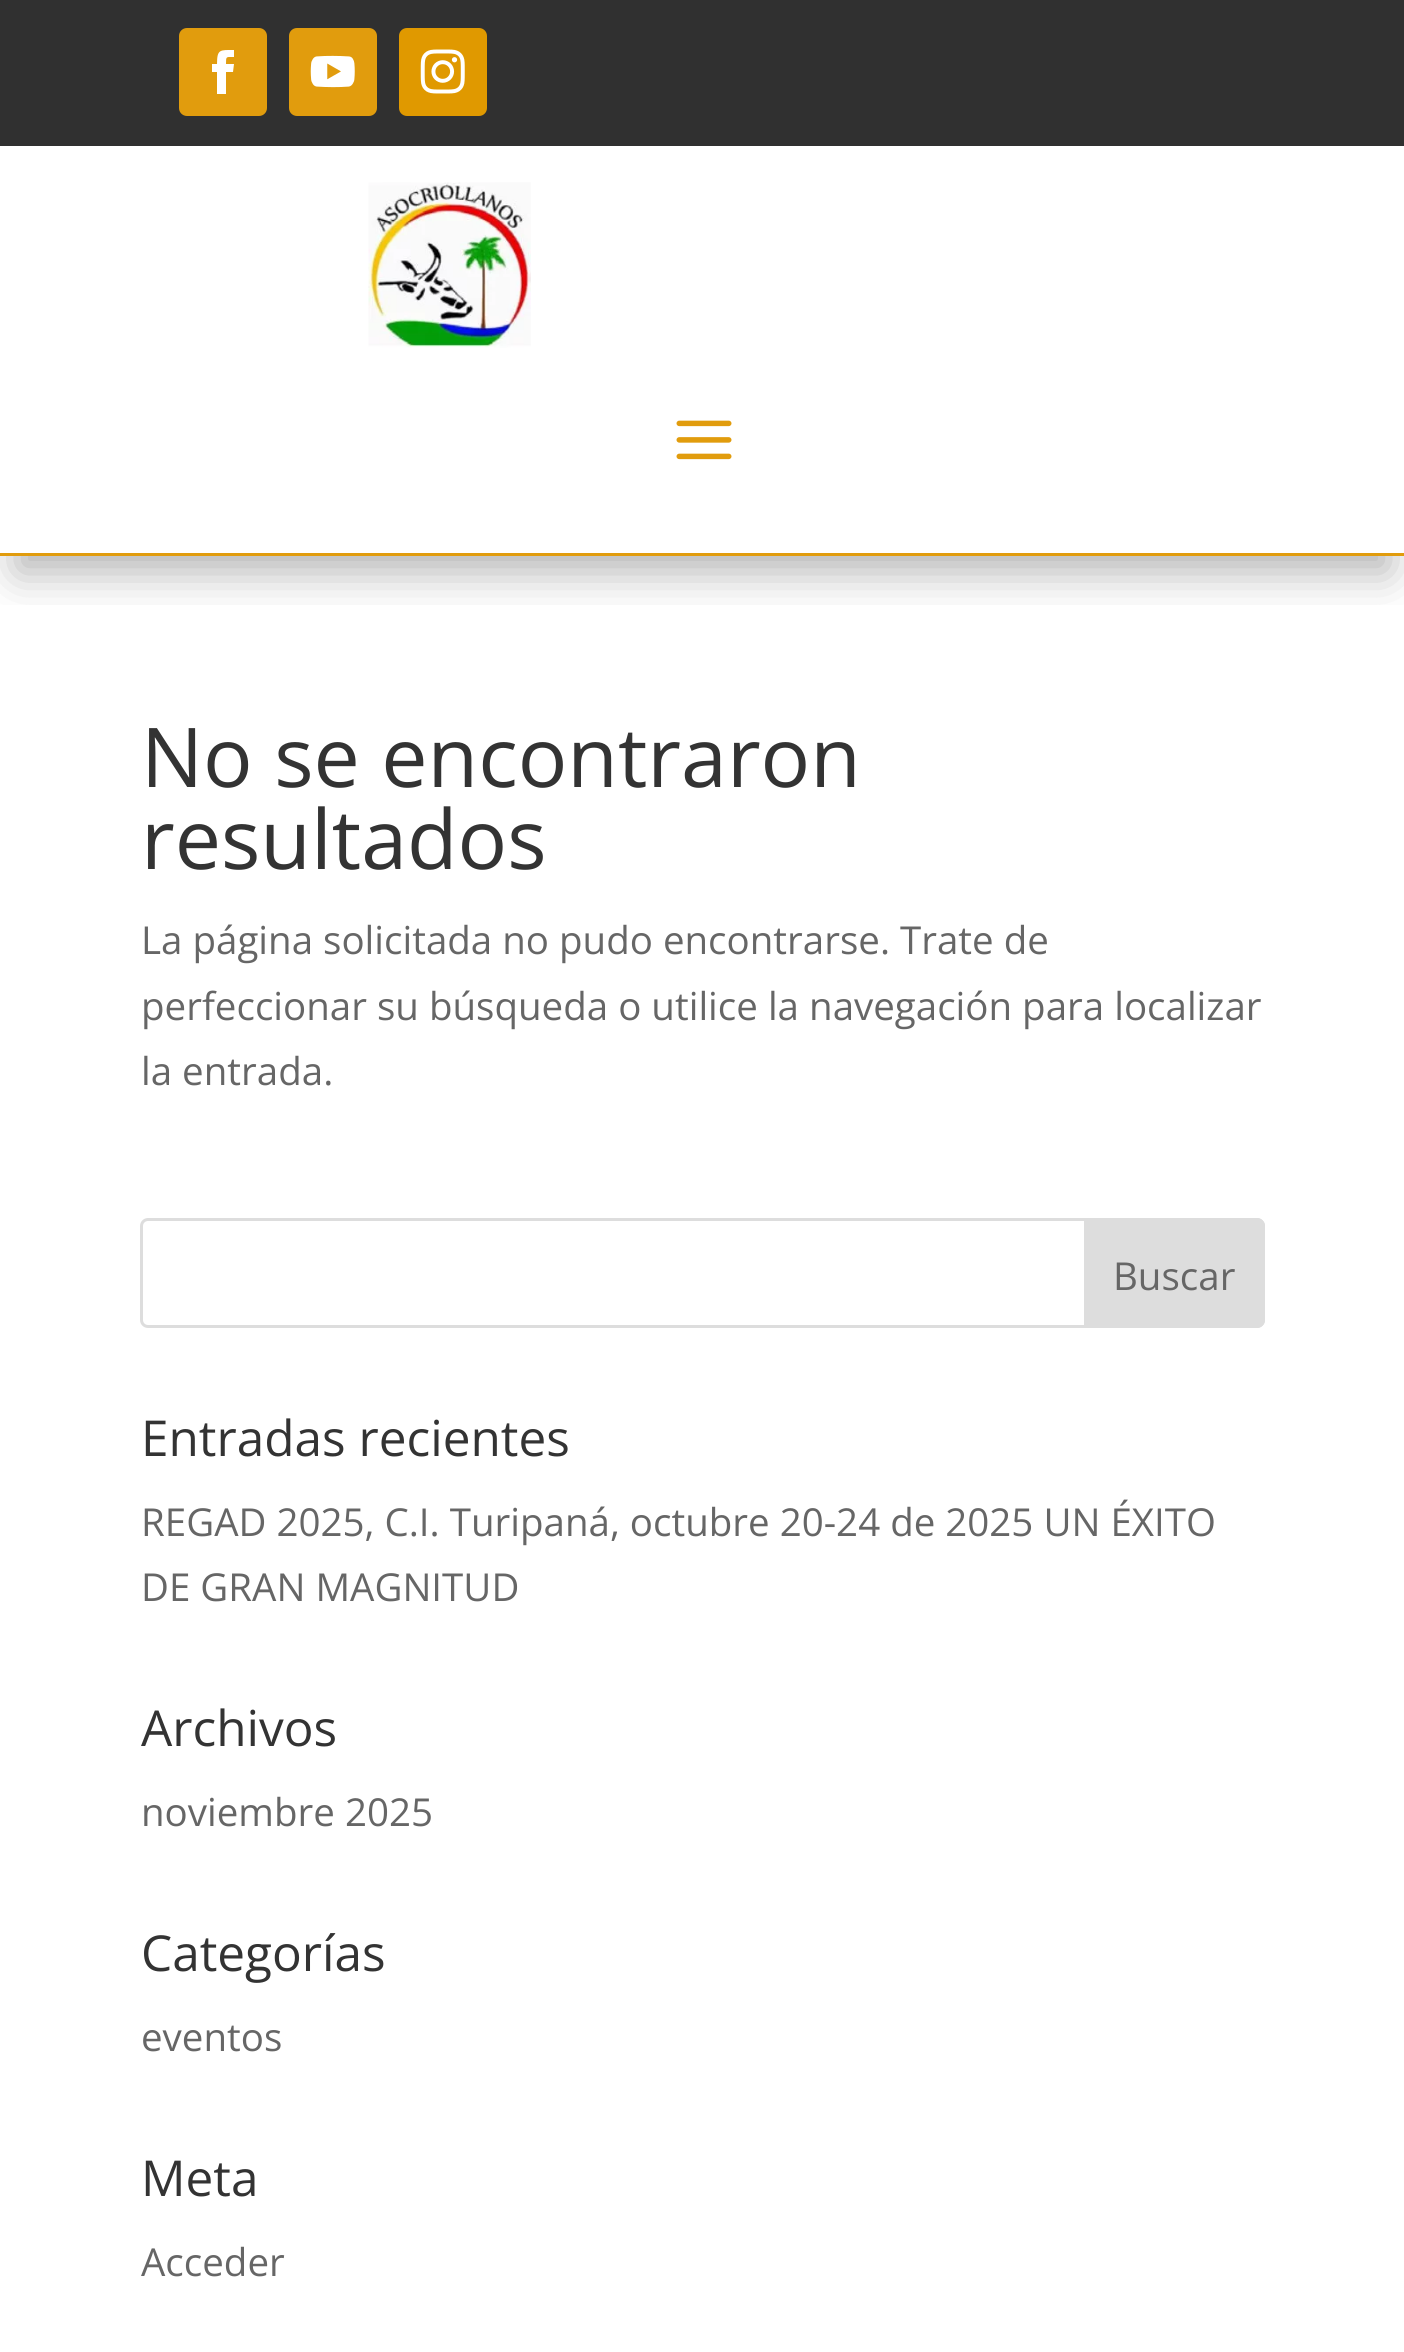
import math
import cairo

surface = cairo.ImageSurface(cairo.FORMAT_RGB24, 1404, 2352)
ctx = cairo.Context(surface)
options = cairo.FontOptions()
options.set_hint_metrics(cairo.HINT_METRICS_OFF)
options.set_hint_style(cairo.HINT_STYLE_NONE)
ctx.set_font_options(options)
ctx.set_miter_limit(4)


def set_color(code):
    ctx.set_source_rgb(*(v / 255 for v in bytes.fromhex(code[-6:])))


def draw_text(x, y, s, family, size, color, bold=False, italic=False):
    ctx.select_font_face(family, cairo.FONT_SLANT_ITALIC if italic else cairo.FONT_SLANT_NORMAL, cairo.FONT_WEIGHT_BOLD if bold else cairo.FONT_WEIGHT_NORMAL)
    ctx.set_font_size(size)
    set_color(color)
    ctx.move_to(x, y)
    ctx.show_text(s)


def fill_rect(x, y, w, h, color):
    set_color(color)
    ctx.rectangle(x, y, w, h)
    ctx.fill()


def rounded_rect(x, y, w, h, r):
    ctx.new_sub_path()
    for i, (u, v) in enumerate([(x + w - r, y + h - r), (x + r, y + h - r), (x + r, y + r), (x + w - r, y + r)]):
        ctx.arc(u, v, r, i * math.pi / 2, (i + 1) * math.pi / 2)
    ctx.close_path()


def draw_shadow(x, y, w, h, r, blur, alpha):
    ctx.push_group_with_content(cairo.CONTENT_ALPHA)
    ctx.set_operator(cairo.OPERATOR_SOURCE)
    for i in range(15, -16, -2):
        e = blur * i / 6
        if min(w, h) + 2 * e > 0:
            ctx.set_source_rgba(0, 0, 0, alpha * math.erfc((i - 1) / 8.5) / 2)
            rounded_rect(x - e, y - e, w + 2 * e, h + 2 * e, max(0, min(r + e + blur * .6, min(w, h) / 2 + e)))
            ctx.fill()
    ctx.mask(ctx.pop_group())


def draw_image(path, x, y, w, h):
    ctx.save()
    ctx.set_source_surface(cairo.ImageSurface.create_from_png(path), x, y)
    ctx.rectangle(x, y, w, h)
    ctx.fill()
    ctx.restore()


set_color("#ffffff")
ctx.paint()
fill_rect(0, 0, 1404, 146, "#303030")
set_color("#e19c0d")
rounded_rect(179, 28, 88, 88, 8)
ctx.fill()
set_color("#ffffff")
ctx.new_path()
ctx.move_to(217, 94)
ctx.line_to(226, 94)
ctx.line_to(226, 72)
ctx.line_to(233, 72)
ctx.line_to(234, 64)
ctx.line_to(226, 64)
ctx.curve_to(226, 56, 226, 57, 234, 57)
ctx.line_to(234, 50)
ctx.curve_to(220, 50, 217, 49, 217, 64)
ctx.line_to(212, 64)
ctx.line_to(212, 72)
ctx.line_to(217, 72)
ctx.close_path()
ctx.fill()
set_color("#e19c0d")
rounded_rect(289, 28, 88, 88, 8)
ctx.fill()
draw_image("assets/img1.png", 310, 55, 45, 33)
set_color("#e09900")
rounded_rect(399, 28, 88, 88, 8)
ctx.fill()
draw_image("assets/img2.png", 420, 49, 45, 45)
ctx.save()
ctx.rectangle(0, 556, 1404, 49)
ctx.clip()
set_color("#000000")
draw_shadow(17, 195, 1372, 377, 0, 22, 0.3)
ctx.restore()
fill_rect(0, 553, 1404, 3, "#e19c0d")
draw_image("assets/img3.png", 368, 182, 163, 166)
draw_image("assets/img4.png", 676, 420, 56, 40)
draw_text(141, 787, "No se encontraron", "Open Sans", 82.5, "#333333")
draw_text(141, 869, "resultados", "Open Sans", 82.5, "#333333")
draw_text(141, 954, "La página solicitada no pudo encontrarse. Trate de", "Open Sans", 38.5, "#666666")
draw_text(141, 1020, "perfeccionar su búsqueda o utilice la navegación para localizar", "Open Sans", 38.5, "#666666")
draw_text(141, 1085, "la entrada.", "Open Sans", 38.5, "#666666")
rounded_rect(141.5, 1219.5, 1122, 107, 6.5)
set_color("#dddddd")
ctx.set_line_width(3)
ctx.stroke()
ctx.new_path()
ctx.move_to(1085.5, 1219.5)
ctx.line_to(1257, 1219.5)
ctx.curve_to(1260.5, 1219.5, 1263.5, 1222.5, 1263.5, 1226)
ctx.line_to(1263.5, 1320)
ctx.curve_to(1263.5, 1323.5, 1260.5, 1326.5, 1257, 1326.5)
ctx.line_to(1085.5, 1326.5)
ctx.close_path()
ctx.fill_preserve()
ctx.stroke()
draw_text(1113, 1290, "Buscar", "Open Sans", 38.5, "#666666")
draw_text(141, 1456, "Entradas recientes", "Open Sans", 49.5, "#333333")
draw_text(141, 1536, "REGAD 2025, C.I. Turipaná, octubre 20-24 de 2025 UN ÉXITO", "Open Sans", 38.5, "#666666")
draw_text(141, 1601, "DE GRAN MAGNITUD", "Open Sans", 38.5, "#666666")
draw_text(141, 1746, "Archivos", "Open Sans", 49.5, "#333333")
draw_text(141, 1826, "noviembre 2025", "Open Sans", 38.5, "#666666")
draw_text(141, 1971, "Categorías", "Open Sans", 49.5, "#333333")
draw_text(141, 2051, "eventos", "Open Sans", 38.5, "#666666")
draw_text(141, 2196, "Meta", "Open Sans", 49.5, "#333333")
draw_text(141, 2276, "Acceder", "Open Sans", 38.5, "#666666")
surface.write_to_png("output.png")
